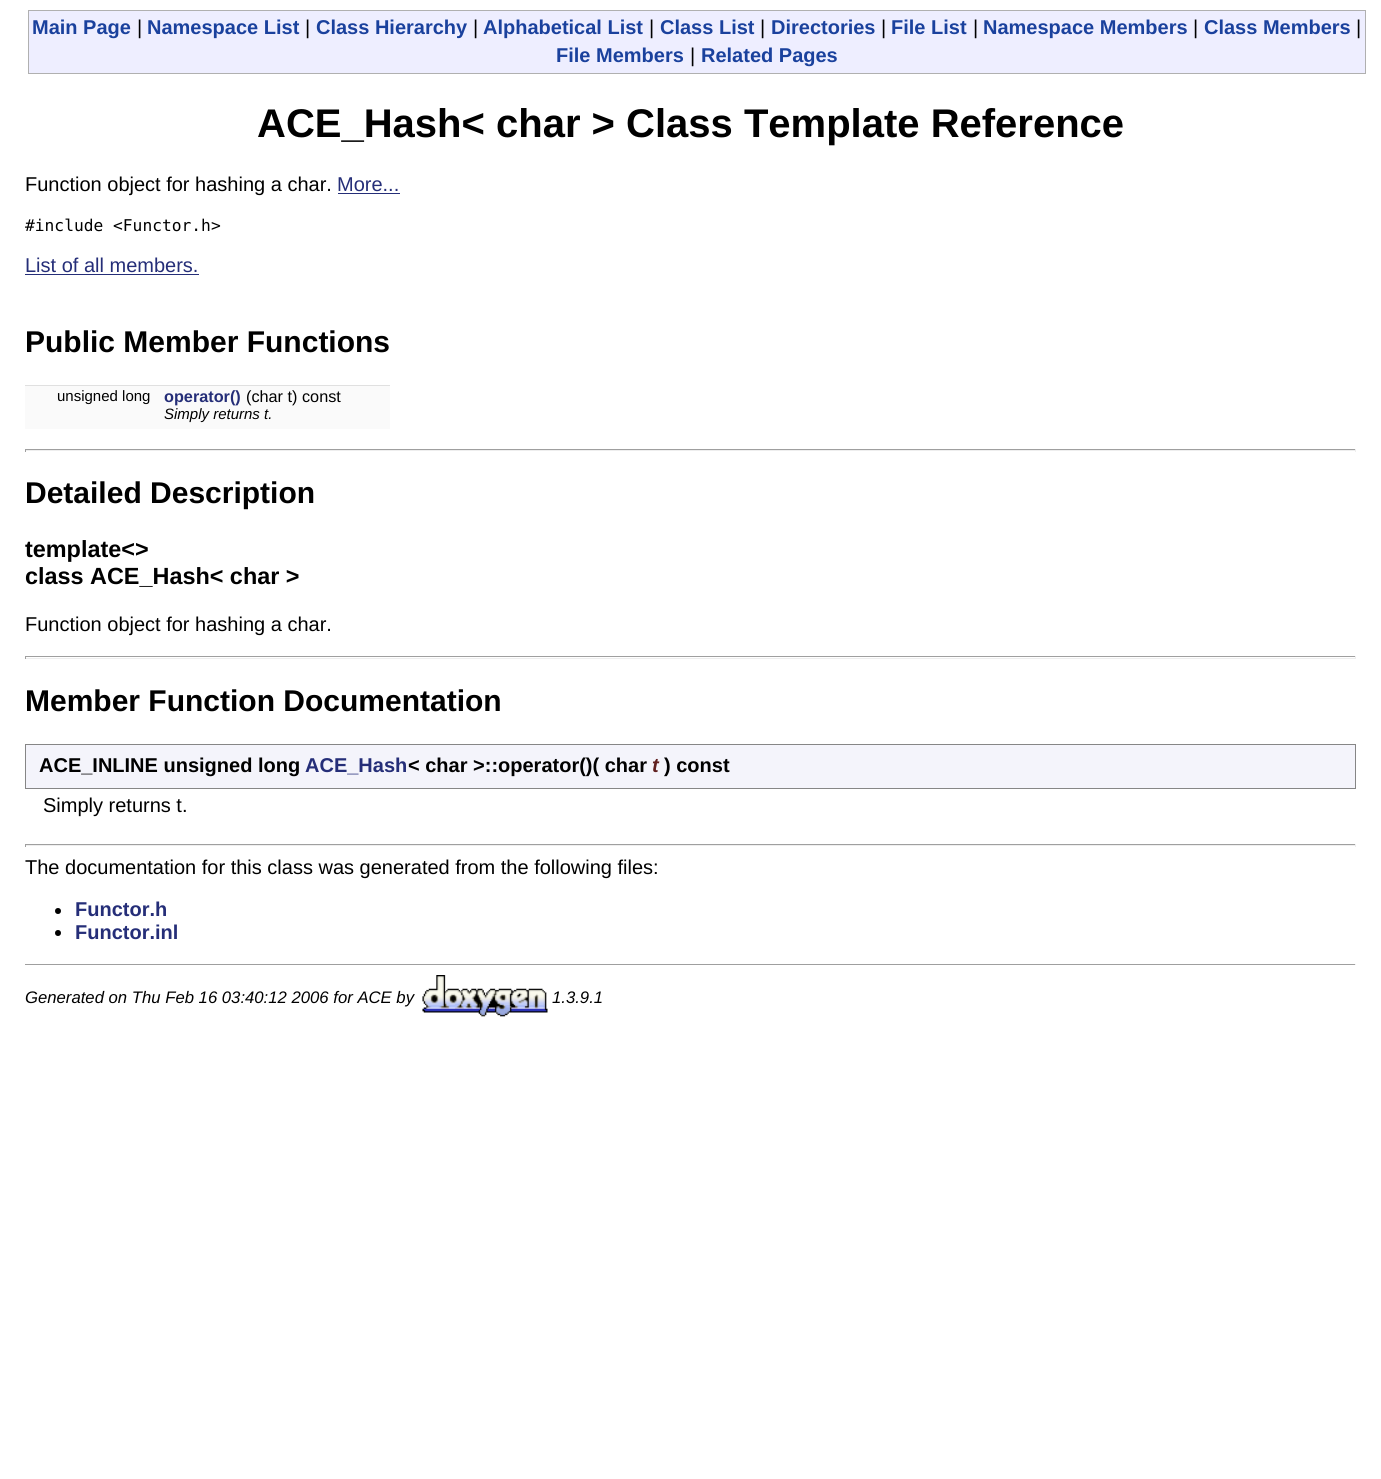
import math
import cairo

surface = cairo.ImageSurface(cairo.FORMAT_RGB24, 1381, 1479)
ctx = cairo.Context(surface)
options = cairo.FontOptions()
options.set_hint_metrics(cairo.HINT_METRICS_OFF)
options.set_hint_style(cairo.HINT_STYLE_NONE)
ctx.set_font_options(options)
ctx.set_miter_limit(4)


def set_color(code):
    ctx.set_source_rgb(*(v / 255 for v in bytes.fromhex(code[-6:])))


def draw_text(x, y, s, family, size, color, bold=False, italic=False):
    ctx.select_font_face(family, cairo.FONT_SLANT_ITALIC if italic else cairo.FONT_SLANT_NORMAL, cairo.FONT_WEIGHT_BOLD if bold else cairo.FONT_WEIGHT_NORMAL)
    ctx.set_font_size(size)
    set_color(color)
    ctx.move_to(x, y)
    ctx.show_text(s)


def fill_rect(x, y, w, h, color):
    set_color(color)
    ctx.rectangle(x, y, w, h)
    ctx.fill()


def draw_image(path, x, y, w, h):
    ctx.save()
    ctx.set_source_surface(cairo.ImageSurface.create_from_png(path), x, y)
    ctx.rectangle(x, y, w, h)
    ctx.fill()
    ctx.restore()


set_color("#ffffff")
ctx.paint()
set_color("#eeeeff")
ctx.rectangle(28.5, 10.5, 1337, 63)
ctx.fill_preserve()
set_color("#b0b0b0")
ctx.set_line_width(1)
ctx.stroke()
draw_text(32, 34, "Main Page", "Liberation Sans", 20, "#1a419d", bold=True)
draw_text(137, 34, "|", "Liberation Sans", 20, "#000000")
draw_text(147, 34, "Namespace List", "Liberation Sans", 20, "#1a419d", bold=True)
draw_text(305, 34, "|", "Liberation Sans", 20, "#000000")
draw_text(316, 34, "Class Hierarchy", "Liberation Sans", 20, "#1a419d", bold=True)
draw_text(473, 34, "|", "Liberation Sans", 20, "#000000")
draw_text(483, 34, "Alphabetical List", "Liberation Sans", 20, "#1a419d", bold=True)
draw_text(649, 34, "|", "Liberation Sans", 20, "#000000")
draw_text(660, 34, "Class List", "Liberation Sans", 20, "#1a419d", bold=True)
draw_text(760, 34, "|", "Liberation Sans", 20, "#000000")
draw_text(771, 34, "Directories", "Liberation Sans", 20, "#1a419d", bold=True)
draw_text(881, 34, "|", "Liberation Sans", 20, "#000000")
draw_text(891, 34, "File List", "Liberation Sans", 20, "#1a419d", bold=True)
draw_text(973, 34, "|", "Liberation Sans", 20, "#000000")
draw_text(983, 34, "Namespace Members", "Liberation Sans", 20, "#1a419d", bold=True)
draw_text(1193, 34, "|", "Liberation Sans", 20, "#000000")
draw_text(1204, 34, "Class Members", "Liberation Sans", 20, "#1a419d", bold=True)
draw_text(1356, 34, "|", "Liberation Sans", 20, "#000000")
draw_text(556, 62, "File Members", "Liberation Sans", 20, "#1a419d", bold=True)
draw_text(690, 62, "|", "Liberation Sans", 20, "#000000")
draw_text(701, 62, "Related Pages", "Liberation Sans", 20, "#1a419d", bold=True)
draw_text(257, 137, "ACE_Hash< char > Class Template Reference", "Liberation Sans", 40, "#000000", bold=True)
draw_text(25, 191, "Function object for hashing a char.", "Liberation Sans", 20, "#000000")
draw_text(337, 191, "More...", "Liberation Sans", 20, "#252e78")
fill_rect(338, 193, 62, 1, "#252e78")
draw_text(25, 231, "#include <Functor.h>", "DejaVu Sans Mono", 16.25, "#000000")
draw_text(25, 272, "List of all members.", "Liberation Sans", 20, "#252e78")
fill_rect(25, 274, 174, 1, "#252e78")
draw_text(25, 352, "Public Member Functions", "Liberation Sans", 30, "#000000", bold=True)
fill_rect(25, 386, 365, 20, "#fafafa")
fill_rect(25, 385, 365, 1, "#e0e0e0")
draw_text(57, 401, "unsigned long", "Liberation Sans", 15, "#000000")
draw_text(164, 402, "operator()", "Liberation Sans", 16.25, "#252e78", bold=True)
draw_text(246, 402, "(char t) const", "Liberation Sans", 16.25, "#000000")
fill_rect(25, 406, 365, 23, "#fafafa")
draw_text(164, 419, "Simply returns t.", "Liberation Sans", 15, "#000000", italic=True)
fill_rect(25, 449, 1331, 1, "#9f9f9f")
fill_rect(1355, 449, 1, 3, "#eeeeee")
fill_rect(25, 450, 1331, 1, "#eeeeee")
fill_rect(25, 449, 1, 3, "#9f9f9f")
draw_text(25, 503, "Detailed Description", "Liberation Sans", 30, "#000000", bold=True)
draw_text(25, 557, "template<>", "Liberation Sans", 23.4, "#000000", bold=True)
draw_text(25, 584, "class ACE_Hash< char >", "Liberation Sans", 23.4, "#000000", bold=True)
draw_text(25, 631, "Function object for hashing a char.", "Liberation Sans", 20, "#000000")
fill_rect(25, 656, 1331, 1, "#9f9f9f")
fill_rect(1355, 656, 1, 3, "#eeeeee")
fill_rect(25, 658, 1331, 1, "#eeeeee")
fill_rect(25, 656, 1, 3, "#9f9f9f")
draw_text(25, 711, "Member Function Documentation", "Liberation Sans", 30, "#000000", bold=True)
set_color("#f4f4fb")
ctx.rectangle(25.5, 744.5, 1330, 44)
ctx.fill_preserve()
set_color("#868686")
ctx.stroke()
draw_text(39, 772, "ACE_INLINE unsigned long", "Liberation Sans", 20, "#000000", bold=True)
draw_text(305, 772, "ACE_Hash", "Liberation Sans", 20, "#252e78", bold=True)
draw_text(408, 772, "< char >::operator()( char", "Liberation Sans", 20, "#000000", bold=True)
draw_text(652, 772, "t", "Liberation Sans", 20, "#602020", bold=True, italic=True)
draw_text(664, 772, ") const", "Liberation Sans", 20, "#000000", bold=True)
draw_text(43, 812, "Simply returns t.", "Liberation Sans", 20, "#000000")
fill_rect(25, 844, 1331, 1, "#9f9f9f")
fill_rect(1355, 844, 1, 3, "#eeeeee")
fill_rect(25, 845, 1331, 1, "#eeeeee")
fill_rect(25, 844, 1, 3, "#9f9f9f")
draw_text(25, 874, "The documentation for this class was generated from the following files:", "Liberation Sans", 20, "#000000")
ctx.new_path()
ctx.arc(58, 911, 3, 0, 2 * math.pi)
ctx.fill()
draw_text(75, 916, "Functor.h", "Liberation Sans", 20, "#252e78", bold=True)
set_color("#000000")
ctx.new_path()
ctx.arc(58, 933, 3, 0, 2 * math.pi)
ctx.fill()
draw_text(75, 939, "Functor.inl", "Liberation Sans", 20, "#252e78", bold=True)
fill_rect(25, 964, 1331, 1, "#9f9f9f")
fill_rect(1355, 964, 1, 1, "#eeeeee")
draw_text(25, 1003, "Generated on Thu Feb 16 03:40:12 2006 for ACE by", "Liberation Sans", 16.7, "#000000", italic=True)
draw_image("assets/img1.png", 422, 975, 126, 42)
draw_text(552, 1003, "1.3.9.1", "Liberation Sans", 16.7, "#000000", italic=True)
surface.write_to_png("output.png")
